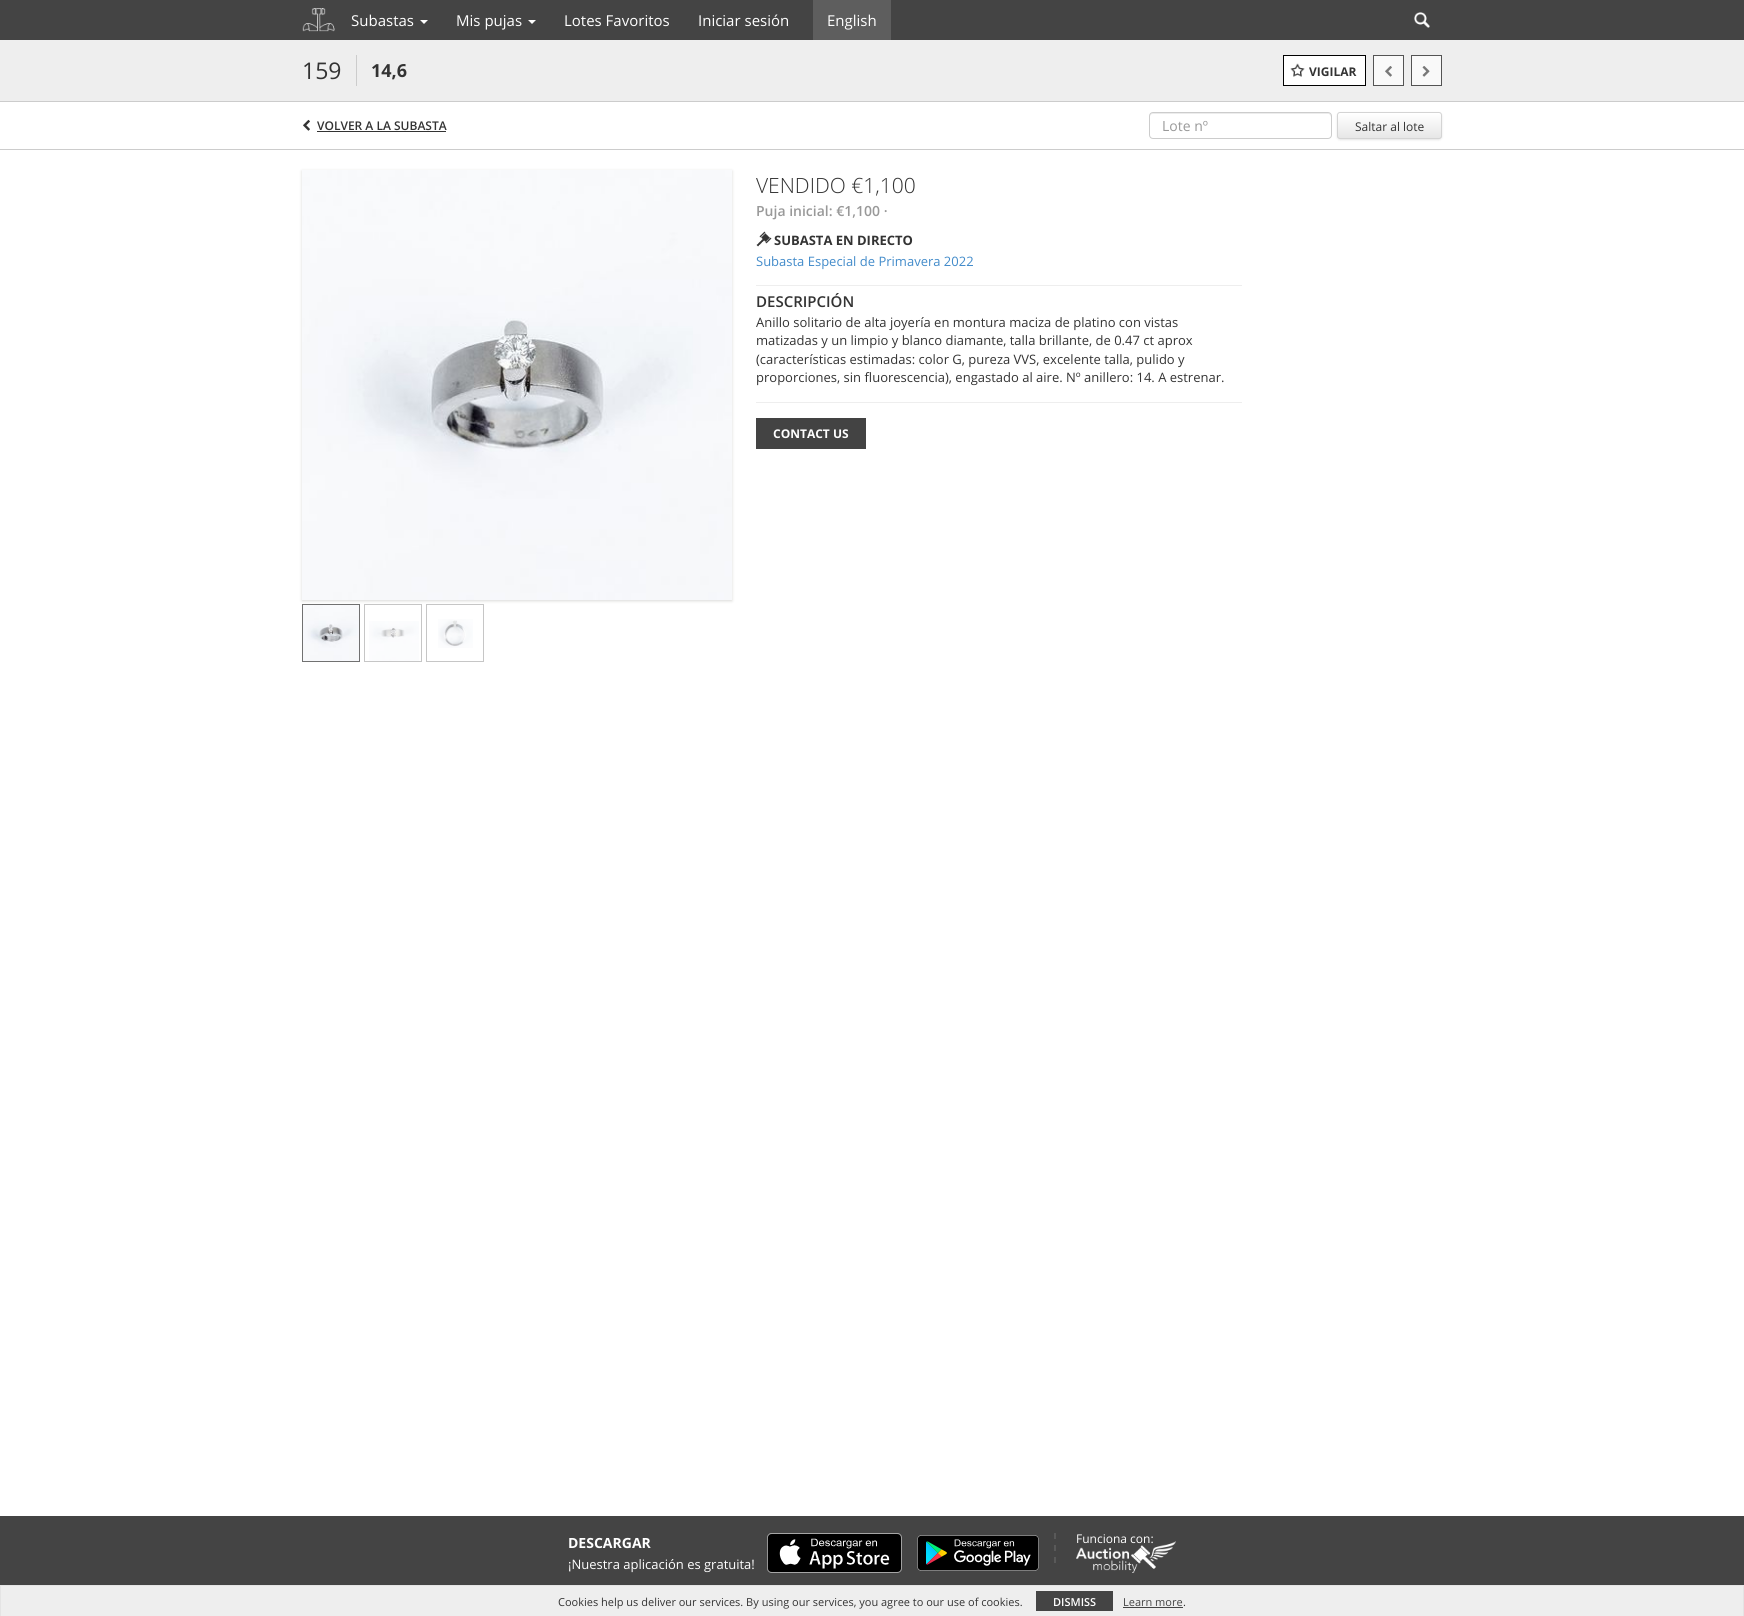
import math
import cairo

surface = cairo.ImageSurface(cairo.FORMAT_RGB24, 1744, 1616)
ctx = cairo.Context(surface)
options = cairo.FontOptions()
options.set_hint_metrics(cairo.HINT_METRICS_OFF)
options.set_hint_style(cairo.HINT_STYLE_NONE)
ctx.set_font_options(options)
ctx.set_miter_limit(4)


def set_color(code):
    ctx.set_source_rgb(*(v / 255 for v in bytes.fromhex(code[-6:])))


def draw_text(x, y, s, family, size, color, bold=False, italic=False):
    ctx.select_font_face(family, cairo.FONT_SLANT_ITALIC if italic else cairo.FONT_SLANT_NORMAL, cairo.FONT_WEIGHT_BOLD if bold else cairo.FONT_WEIGHT_NORMAL)
    ctx.set_font_size(size)
    set_color(color)
    ctx.move_to(x, y)
    ctx.show_text(s)


def fill_rect(x, y, w, h, color):
    set_color(color)
    ctx.rectangle(x, y, w, h)
    ctx.fill()


def rounded_rect(x, y, w, h, r):
    ctx.new_sub_path()
    for i, (u, v) in enumerate([(x + w - r, y + h - r), (x + r, y + h - r), (x + r, y + r), (x + w - r, y + r)]):
        ctx.arc(u, v, r, i * math.pi / 2, (i + 1) * math.pi / 2)
    ctx.close_path()


def draw_shadow(x, y, w, h, r, blur, alpha):
    ctx.push_group_with_content(cairo.CONTENT_ALPHA)
    ctx.set_operator(cairo.OPERATOR_SOURCE)
    for i in range(15, -16, -2):
        e = blur * i / 6
        if min(w, h) + 2 * e > 0:
            ctx.set_source_rgba(0, 0, 0, alpha * math.erfc((i - 1) / 8.5) / 2)
            rounded_rect(x - e, y - e, w + 2 * e, h + 2 * e, max(0, min(r + e + blur * .6, min(w, h) / 2 + e)))
            ctx.fill()
    ctx.mask(ctx.pop_group())


def draw_image(path, x, y, w, h):
    ctx.save()
    ctx.set_source_surface(cairo.ImageSurface.create_from_png(path), x, y)
    ctx.rectangle(x, y, w, h)
    ctx.fill()
    ctx.restore()


set_color("#ffffff")
ctx.paint()
fill_rect(0, 0, 1744, 40, "#444444")
draw_image("assets/img1.png", 302, 8, 33, 24)
draw_text(351, 26, "Subastas", "Open Sans", 15, "#ffffff")
ctx.new_path()
ctx.move_to(420, 20)
ctx.line_to(428, 20)
ctx.line_to(424, 24)
ctx.close_path()
ctx.fill()
draw_text(456, 26, "Mis pujas", "Open Sans", 15, "#ffffff")
ctx.new_path()
ctx.move_to(528, 20)
ctx.line_to(536, 20)
ctx.line_to(532, 24)
ctx.close_path()
ctx.fill()
draw_text(564, 26, "Lotes Favoritos", "Open Sans", 15, "#ffffff")
draw_text(698, 26, "Iniciar sesión", "Open Sans", 15, "#ffffff")
fill_rect(813, 0, 78, 40, "#5e5e5e")
draw_text(827, 26, "English", "Open Sans", 15, "#ffffff")
draw_image("assets/img2.png", 1414, 12, 16, 16)
fill_rect(0, 40, 1744, 61, "#eeeeee")
fill_rect(0, 101, 1744, 1, "#cccccc")
draw_text(302, 79, "159", "Open Sans", 23, "#333333")
fill_rect(356, 55, 1, 31, "#cccccc")
draw_text(371, 77, "14,6", "Open Sans", 18, "#333333", bold=True)
set_color("#ffffff")
ctx.rectangle(1283.5, 55.5, 82, 30)
ctx.fill_preserve()
set_color("#000000")
ctx.set_line_width(1)
ctx.stroke()
draw_image("assets/img3.png", 1290, 63, 15, 14)
draw_text(1309, 76, "VIGILAR", "Open Sans", 12, "#333333", bold=True)
set_color("#f9f9f9")
ctx.rectangle(1373.5, 55.5, 30, 30)
ctx.fill_preserve()
set_color("#535353")
ctx.stroke()
draw_image("assets/img4.png", 1385, 66, 7, 11)
set_color("#f9f9f9")
ctx.rectangle(1411.5, 55.5, 30, 30)
ctx.fill_preserve()
set_color("#535353")
ctx.stroke()
draw_image("assets/img5.png", 1422, 66, 8, 11)
draw_image("assets/img6.png", 303, 119, 7, 12)
draw_text(317, 130, "VOLVER A LA SUBASTA", "Open Sans SemiBold", 12, "#333333")
fill_rect(317, 131, 129, 1, "#333333")
set_color("#ececec")
ctx.new_path()
ctx.move_to(1153, 114)
ctx.line_to(1329, 114)
ctx.line_to(1330, 115)
ctx.line_to(1331, 117)
ctx.line_to(1331, 116)
ctx.curve_to(1331, 114, 1330, 113, 1328, 113)
ctx.line_to(1153, 113)
ctx.curve_to(1151, 113, 1150, 114, 1150, 116)
ctx.line_to(1150, 117)
ctx.curve_to(1150, 115, 1151, 114, 1153, 114)
ctx.close_path()
ctx.fill()
rounded_rect(1149.5, 112.5, 182, 26, 3.5)
set_color("#cccccc")
ctx.stroke()
draw_text(1162, 131, "Lote nº", "Open Sans", 14, "#999999")
set_color("#000000")
draw_shadow(1338, 114, 103, 25, 2, 1.5, 0.2)
ctx.save()
rounded_rect(1337, 112, 105, 27, 3)
ctx.clip()
gradient = cairo.LinearGradient(1390, 113, 1390, 138)
gradient.add_color_stop_rgba(0, 1, 1, 1, 1)
gradient.add_color_stop_rgba(1, 0.902, 0.902, 0.902, 1)
ctx.set_source(gradient)
ctx.rectangle(1337, 113, 105, 25)
ctx.fill()
ctx.restore()
ctx.set_source_rgba(1, 1, 1, 0.4)
ctx.new_path()
ctx.move_to(1340, 114)
ctx.line_to(1439, 114)
ctx.curve_to(1440, 114, 1441, 115, 1441, 116)
ctx.curve_to(1441, 115, 1441, 113, 1439, 113)
ctx.line_to(1356, 113)
ctx.curve_to(1355, 113, 1338, 108, 1338, 116)
ctx.curve_to(1338, 115, 1339, 114, 1340, 114)
ctx.close_path()
ctx.fill()
rounded_rect(1337.5, 112.5, 104, 26, 2.5)
set_color("#d4d4d4")
ctx.stroke()
draw_text(1355, 131, "Saltar al lote", "Open Sans", 12, "#333333")
fill_rect(0, 149, 1744, 1, "#cccccc")
set_color("#dad9d7")
draw_shadow(302, 171, 430, 430, 0, 1.5, 1)
draw_image("assets/img7.png", 302, 170, 430, 430)
ctx.rectangle(302.5, 604.5, 57, 57)
set_color("#717171")
ctx.stroke()
ctx.rectangle(364.5, 604.5, 57, 57)
set_color("#c6c6c6")
ctx.stroke()
ctx.rectangle(426.5, 604.5, 57, 57)
ctx.stroke()
draw_image("assets/img8.png", 303, 605, 56, 56)
draw_image("assets/img9.png", 369, 621, 50, 40)
draw_image("assets/img10.png", 438, 619, 35, 29)
draw_text(756, 193, "VENDIDO €1,100", "Open Sans Light", 21, "#333333")
draw_text(756, 216, "Puja inicial: €1,100 ·", "Open Sans SemiBold", 14, "#999999")
draw_image("assets/img11.png", 756, 231, 16, 16)
draw_text(774, 245, "SUBASTA EN DIRECTO", "Open Sans", 13, "#333333", bold=True)
draw_text(756, 266, "Subasta Especial de Primavera 2022", "Open Sans", 13, "#428bca")
fill_rect(756, 285, 486, 1, "#eeeeee")
draw_text(756, 307, "DESCRIPCIÓN", "Open Sans SemiBold", 15, "#333333")
draw_text(756, 327, "Anillo solitario de alta joyería en montura maciza de platino con vistas", "Open Sans", 13, "#333333")
draw_text(756, 345, "matizadas y un limpio y blanco diamante, talla brillante, de 0.47 ct aprox", "Open Sans", 13, "#333333")
draw_text(756, 364, "(características estimadas: color G, pureza VVS, excelente talla, pulido y", "Open Sans", 13, "#333333")
draw_text(756, 382, "proporciones, sin fluorescencia), engastado al aire. Nº anillero: 14. A estrenar.", "Open Sans", 13, "#333333")
fill_rect(756, 402, 486, 1, "#eeeeee")
fill_rect(756, 418, 110, 31, "#434343")
draw_text(773, 438, "CONTACT US", "Open Sans", 12, "#ffffff", bold=True)
fill_rect(0, 1516, 1744, 69, "#444444")
draw_text(568, 1548, "DESCARGAR", "Open Sans", 14, "#ffffff", bold=True)
draw_text(568, 1569, "¡Nuestra aplicación es gratuita!", "Open Sans", 13, "#ffffff")
draw_image("assets/img12.png", 767, 1533, 135, 40)
draw_image("assets/img13.png", 917, 1535, 122, 36)
ctx.new_path()
ctx.move_to(1055, 1533)
ctx.line_to(1055, 1539)
ctx.move_to(1055, 1545)
ctx.line_to(1055, 1551)
ctx.move_to(1055, 1557)
ctx.line_to(1055, 1563)
set_color("#595959")
ctx.set_line_width(2)
ctx.stroke()
draw_text(1076, 1543, "Funciona con:", "Open Sans", 12, "#ffffff")
draw_image("assets/img14.png", 1076, 1541, 100, 32)
fill_rect(1, 1586, 1742, 30, "#eeeeee")
fill_rect(0, 1585, 1744, 1, "#e4e4e4")
fill_rect(1743, 1585, 1, 31, "#e4e4e4")
fill_rect(0, 1585, 1, 31, "#e4e4e4")
draw_text(558, 1606, "Cookies help us deliver our services. By using our services, you agree to our use of cookies.", "Open Sans", 11, "#333333")
fill_rect(1036, 1591, 77, 20, "#444444")
draw_text(1053, 1606, "DISMISS", "Open Sans SemiBold", 11, "#ffffff")
draw_text(1123, 1606, "Learn more", "Open Sans", 11, "#444444")
fill_rect(1123, 1607, 60, 1, "#444444")
draw_text(1183, 1606, ".", "Open Sans", 11, "#333333")
surface.write_to_png("output.png")
